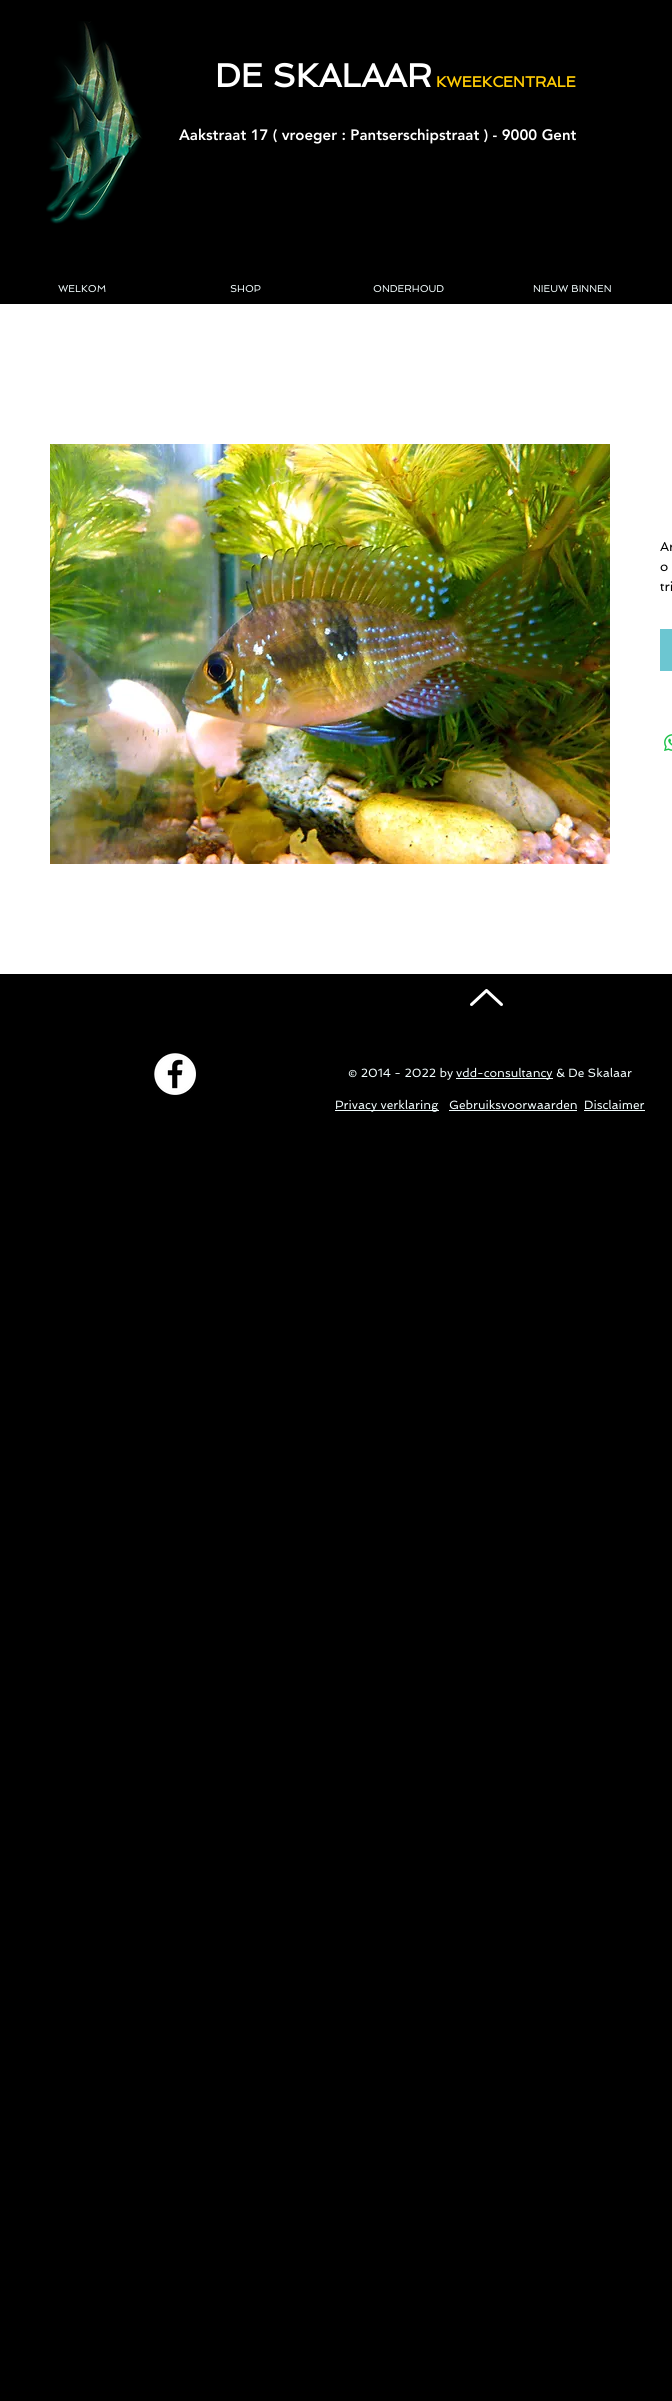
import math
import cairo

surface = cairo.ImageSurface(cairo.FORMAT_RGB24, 672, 2401)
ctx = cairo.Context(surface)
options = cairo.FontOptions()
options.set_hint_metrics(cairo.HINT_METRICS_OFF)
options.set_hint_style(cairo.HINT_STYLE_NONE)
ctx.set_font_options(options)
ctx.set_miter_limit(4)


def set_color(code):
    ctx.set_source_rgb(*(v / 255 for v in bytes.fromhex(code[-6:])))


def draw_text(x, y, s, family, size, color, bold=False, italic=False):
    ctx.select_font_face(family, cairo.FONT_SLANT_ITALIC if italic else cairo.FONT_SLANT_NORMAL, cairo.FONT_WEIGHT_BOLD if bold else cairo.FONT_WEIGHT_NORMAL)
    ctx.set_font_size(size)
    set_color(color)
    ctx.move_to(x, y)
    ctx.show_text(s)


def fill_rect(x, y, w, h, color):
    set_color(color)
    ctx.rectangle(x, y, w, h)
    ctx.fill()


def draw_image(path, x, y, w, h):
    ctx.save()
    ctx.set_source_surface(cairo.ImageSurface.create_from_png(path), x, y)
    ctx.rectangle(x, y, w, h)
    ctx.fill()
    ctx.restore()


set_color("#000000")
ctx.paint()
draw_image("assets/img1.png", 46, 21, 97, 203)
draw_text(215, 87, "DE SKALAAR", "Spinnaker", 33, "#ffffff", bold=True)
draw_text(436, 87, "KWEEKCENTRALE", "Spinnaker", 15, "#ffcb05", bold=True)
draw_text(179, 140, "Aakstraat 17 ( vroeger : Pantserschipstraat ) - 9000 Gent", "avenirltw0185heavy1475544 Black", 15, "#ffffff")
draw_text(58, 292, "WELKOM", "Spinnaker", 10, "#f3feff")
draw_text(230, 292, "SHOP", "Spinnaker", 10, "#f3feff")
draw_text(373, 292, "ONDERHOUD", "Spinnaker", 10, "#f3feff")
draw_text(533, 292, "NIEUW BINNEN", "Spinnaker", 10, "#f3feff")
fill_rect(0, 304, 672, 670, "#ffffff")
draw_image("assets/img2.png", 50, 444, 560, 420)
draw_text(660, 551, "Ar", "Spinnaker", 13, "#000000")
draw_text(660, 571, "o", "Spinnaker", 13, "#000000")
draw_text(660, 591, "tri", "Spinnaker", 13, "#000000")
fill_rect(660, 629, 12, 42, "#6cc6d1")
draw_image("assets/img3.png", 664, 734, 8, 17)
draw_image("assets/img4.png", 470, 989, 33, 17)
draw_image("assets/img5.png", 154, 1053, 42, 42)
draw_text(348, 1077, "© 2014 - 2022 by", "Spinnaker", 12, "#f3feff")
fill_rect(456, 1078, 97, 1, "#f3feff")
draw_text(456, 1077, "vdd-consultancy & De Skalaar", "Spinnaker", 12, "#f3feff")
fill_rect(335, 1110, 104, 1, "#f3feff")
draw_text(335, 1109, "Privacy verklaring", "Spinnaker", 12, "#f3feff")
draw_text(449, 1109, "Gebruiksvoorwaarden", "Spinnaker", 12, "#f3feff")
fill_rect(449, 1110, 128, 1, "#f3feff")
draw_text(584, 1109, "Disclaimer", "Spinnaker", 12, "#f3feff")
fill_rect(584, 1110, 61, 1, "#f3feff")
surface.write_to_png("output.png")
